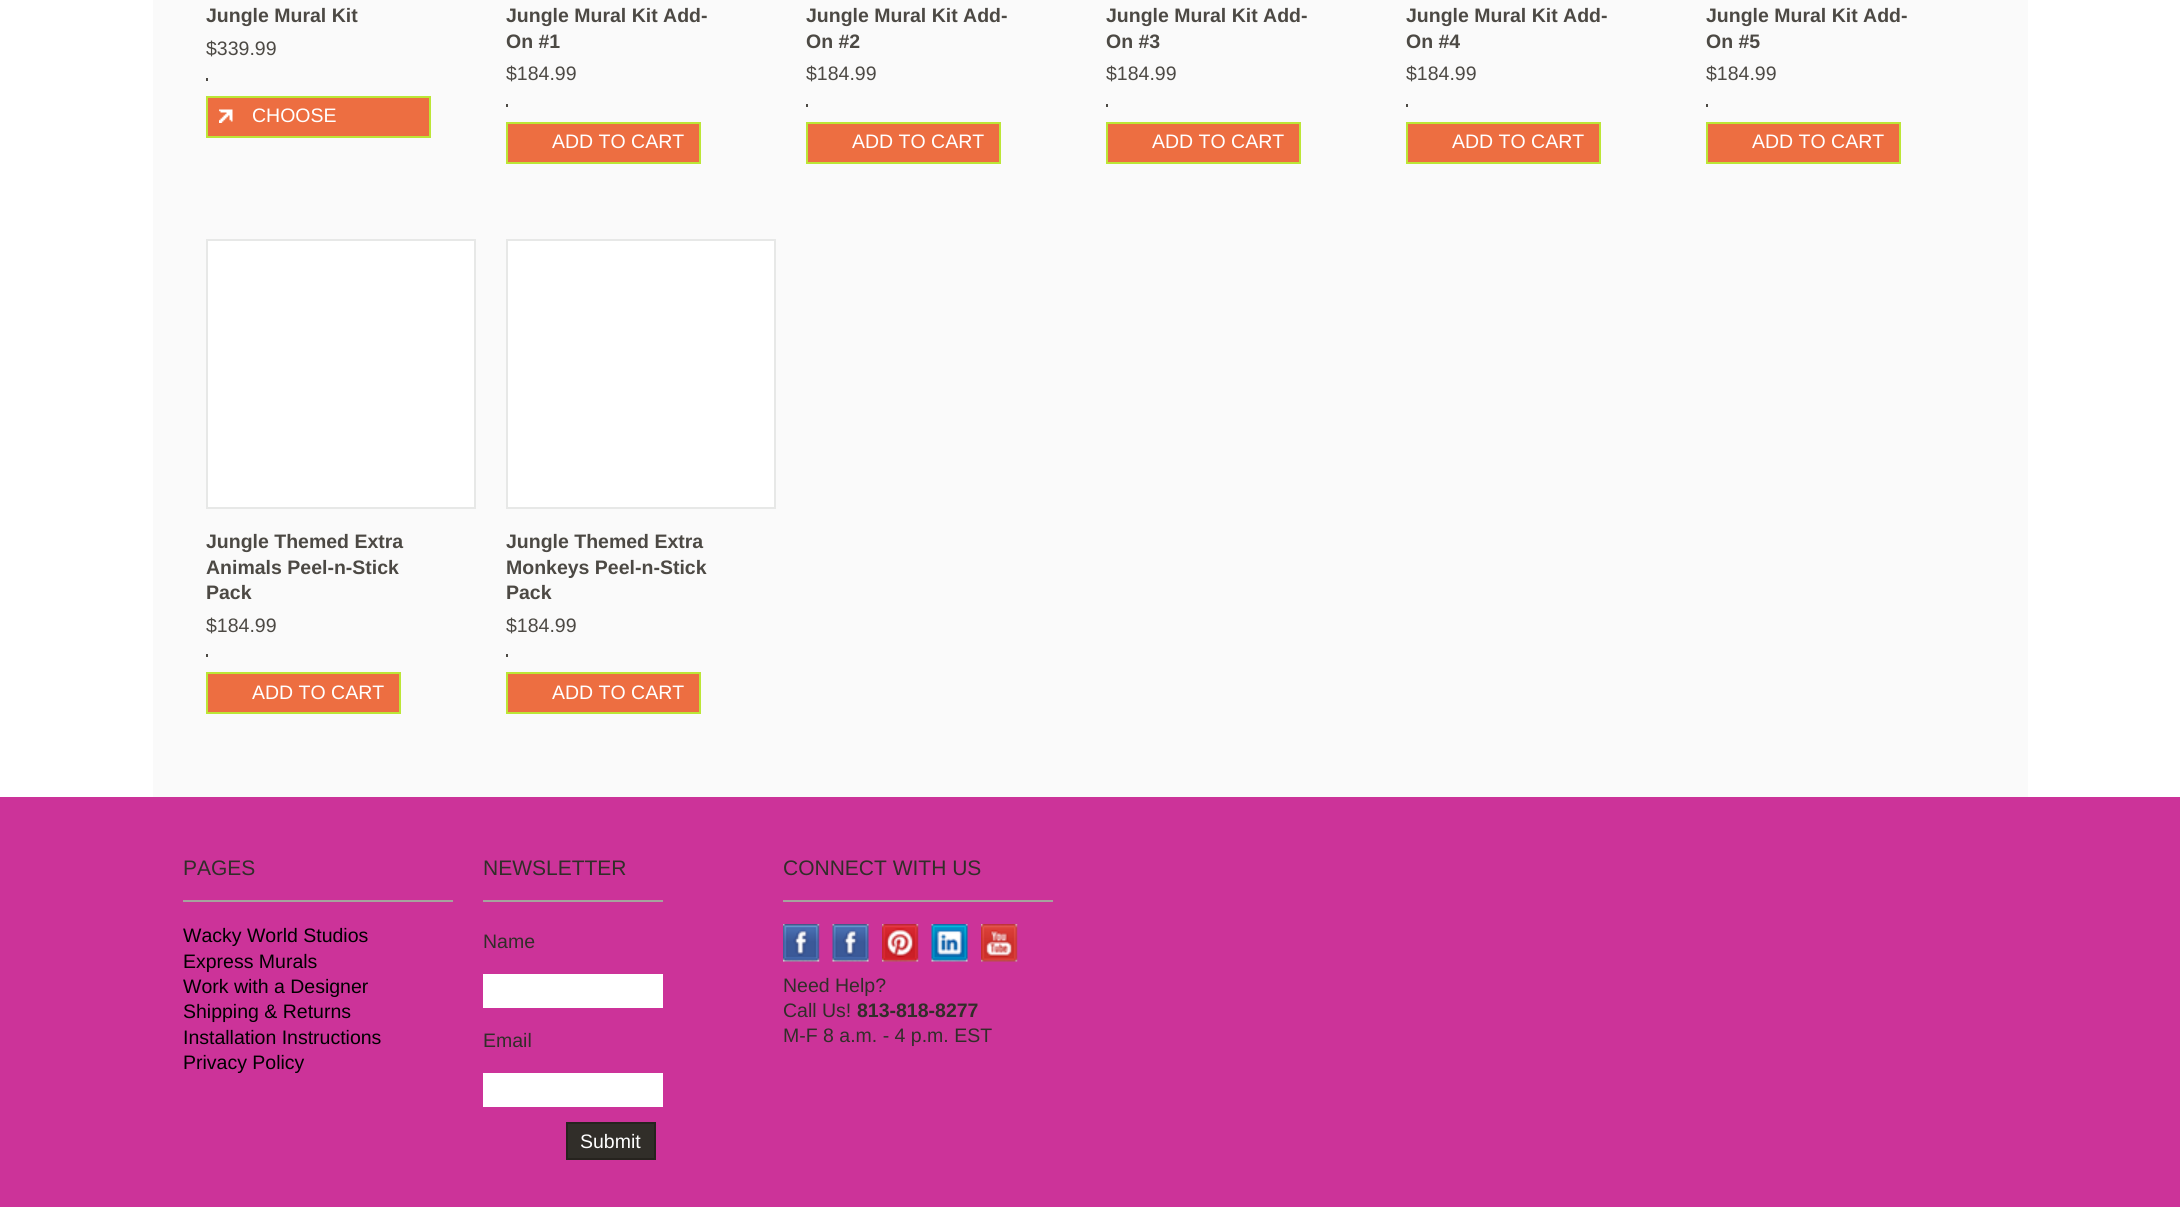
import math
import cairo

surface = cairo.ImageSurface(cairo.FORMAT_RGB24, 2180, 1207)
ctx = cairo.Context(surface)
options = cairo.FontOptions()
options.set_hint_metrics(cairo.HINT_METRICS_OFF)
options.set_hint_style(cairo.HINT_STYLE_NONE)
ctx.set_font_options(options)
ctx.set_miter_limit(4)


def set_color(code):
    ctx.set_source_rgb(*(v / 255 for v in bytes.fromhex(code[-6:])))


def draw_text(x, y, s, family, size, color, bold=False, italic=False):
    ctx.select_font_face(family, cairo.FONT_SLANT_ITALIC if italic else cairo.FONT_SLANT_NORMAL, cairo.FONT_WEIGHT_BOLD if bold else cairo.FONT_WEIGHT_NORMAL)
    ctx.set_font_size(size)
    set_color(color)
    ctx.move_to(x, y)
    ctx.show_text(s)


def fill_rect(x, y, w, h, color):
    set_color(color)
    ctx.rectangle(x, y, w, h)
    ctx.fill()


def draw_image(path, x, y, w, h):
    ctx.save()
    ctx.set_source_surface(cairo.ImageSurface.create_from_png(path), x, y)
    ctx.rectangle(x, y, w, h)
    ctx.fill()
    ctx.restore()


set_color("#ffffff")
ctx.paint()
fill_rect(153, 0, 1875, 797, "#fafafa")
draw_text(206, 22, "Jungle Mural Kit", "Liberation Sans", 19.5, "#4c4944", bold=True)
draw_text(206, 55, "$339.99", "Liberation Sans", 19.5, "#4c4944")
fill_rect(206, 78, 2, 3, "#4c4944")
fill_rect(208, 98, 221, 38, "#ed6e41")
draw_image("assets/img1.png", 219, 109, 14, 14)
ctx.rectangle(207, 97, 223, 40)
set_color("#bce636")
ctx.stroke()
draw_text(252, 122, "CHOOSE", "Liberation Sans", 19.5, "#ffffff")
draw_text(506, 22, "Jungle Mural Kit Add-", "Liberation Sans", 19.5, "#4c4944", bold=True)
draw_text(506, 48, "On #1", "Liberation Sans", 19.5, "#4c4944", bold=True)
draw_text(506, 80, "$184.99", "Liberation Sans", 19.5, "#4c4944")
fill_rect(506, 104, 2, 3, "#4c4944")
set_color("#ed6e41")
ctx.rectangle(507, 123, 193, 40)
ctx.fill_preserve()
set_color("#bce636")
ctx.stroke()
draw_text(552, 148, "ADD TO CART", "Liberation Sans", 19.5, "#ffffff")
draw_text(806, 22, "Jungle Mural Kit Add-", "Liberation Sans", 19.5, "#4c4944", bold=True)
draw_text(806, 48, "On #2", "Liberation Sans", 19.5, "#4c4944", bold=True)
draw_text(806, 80, "$184.99", "Liberation Sans", 19.5, "#4c4944")
fill_rect(806, 104, 2, 3, "#4c4944")
set_color("#ed6e41")
ctx.rectangle(807, 123, 193, 40)
ctx.fill_preserve()
set_color("#bce636")
ctx.stroke()
draw_text(852, 148, "ADD TO CART", "Liberation Sans", 19.5, "#ffffff")
draw_text(1106, 22, "Jungle Mural Kit Add-", "Liberation Sans", 19.5, "#4c4944", bold=True)
draw_text(1106, 48, "On #3", "Liberation Sans", 19.5, "#4c4944", bold=True)
draw_text(1106, 80, "$184.99", "Liberation Sans", 19.5, "#4c4944")
fill_rect(1106, 104, 2, 3, "#4c4944")
set_color("#ed6e41")
ctx.rectangle(1107, 123, 193, 40)
ctx.fill_preserve()
set_color("#bce636")
ctx.stroke()
draw_text(1152, 148, "ADD TO CART", "Liberation Sans", 19.5, "#ffffff")
draw_text(1406, 22, "Jungle Mural Kit Add-", "Liberation Sans", 19.5, "#4c4944", bold=True)
draw_text(1406, 48, "On #4", "Liberation Sans", 19.5, "#4c4944", bold=True)
draw_text(1406, 80, "$184.99", "Liberation Sans", 19.5, "#4c4944")
fill_rect(1406, 104, 2, 3, "#4c4944")
set_color("#ed6e41")
ctx.rectangle(1407, 123, 193, 40)
ctx.fill_preserve()
set_color("#bce636")
ctx.stroke()
draw_text(1452, 148, "ADD TO CART", "Liberation Sans", 19.5, "#ffffff")
draw_text(1706, 22, "Jungle Mural Kit Add-", "Liberation Sans", 19.5, "#4c4944", bold=True)
draw_text(1706, 48, "On #5", "Liberation Sans", 19.5, "#4c4944", bold=True)
draw_text(1706, 80, "$184.99", "Liberation Sans", 19.5, "#4c4944")
fill_rect(1706, 104, 2, 3, "#4c4944")
set_color("#ed6e41")
ctx.rectangle(1707, 123, 193, 40)
ctx.fill_preserve()
set_color("#bce636")
ctx.stroke()
draw_text(1752, 148, "ADD TO CART", "Liberation Sans", 19.5, "#ffffff")
ctx.rectangle(207, 240, 268, 268)
ctx.fill_preserve()
set_color("#e7e8e7")
ctx.stroke()
draw_text(206, 548, "Jungle Themed Extra", "Liberation Sans", 19.5, "#4c4944", bold=True)
draw_text(206, 574, "Animals Peel-n-Stick", "Liberation Sans", 19.5, "#4c4944", bold=True)
draw_text(206, 599, "Pack", "Liberation Sans", 19.5, "#4c4944", bold=True)
draw_text(206, 632, "$184.99", "Liberation Sans", 19.5, "#4c4944")
fill_rect(206, 654, 2, 3, "#4c4944")
set_color("#ed6e41")
ctx.rectangle(207, 673, 193, 40)
ctx.fill_preserve()
set_color("#bce636")
ctx.stroke()
draw_text(252, 699, "ADD TO CART", "Liberation Sans", 19.5, "#ffffff")
ctx.rectangle(507, 240, 268, 268)
ctx.fill_preserve()
set_color("#e7e8e7")
ctx.stroke()
draw_text(506, 548, "Jungle Themed Extra", "Liberation Sans", 19.5, "#4c4944", bold=True)
draw_text(506, 574, "Monkeys Peel-n-Stick", "Liberation Sans", 19.5, "#4c4944", bold=True)
draw_text(506, 599, "Pack", "Liberation Sans", 19.5, "#4c4944", bold=True)
draw_text(506, 632, "$184.99", "Liberation Sans", 19.5, "#4c4944")
fill_rect(506, 654, 2, 3, "#4c4944")
set_color("#ed6e41")
ctx.rectangle(507, 673, 193, 40)
ctx.fill_preserve()
set_color("#bce636")
ctx.stroke()
draw_text(552, 699, "ADD TO CART", "Liberation Sans", 19.5, "#ffffff")
fill_rect(0, 797, 2180, 410, "#cc3399")
fill_rect(183, 900, 270, 2, "#a6a39e")
draw_text(183, 875, "PAGES", "Liberation Sans", 21, "#312e29")
draw_text(183, 942, "Wacky World Studios", "Liberation Sans", 19.5, "#000000")
draw_text(183, 968, "Express Murals", "Liberation Sans", 19.5, "#000000")
draw_text(183, 993, "Work with a Designer", "Liberation Sans", 19.5, "#000000")
draw_text(183, 1018, "Shipping & Returns", "Liberation Sans", 19.5, "#000000")
draw_text(183, 1044, "Installation Instructions", "Liberation Sans", 19.5, "#000000")
draw_text(183, 1069, "Privacy Policy", "Liberation Sans", 19.5, "#000000")
fill_rect(483, 900, 180, 2, "#a6a39e")
draw_text(483, 875, "NEWSLETTER", "Liberation Sans", 21, "#312e29")
draw_text(483, 948, "Name", "Liberation Sans", 19.5, "#312e29")
fill_rect(483, 974, 180, 34, "#ffffff")
draw_text(483, 1047, "Email", "Liberation Sans", 19.5, "#312e29")
fill_rect(483, 1073, 180, 34, "#ffffff")
set_color("#312e29")
ctx.rectangle(567, 1123, 88, 36)
ctx.fill_preserve()
set_color("#26231e")
ctx.stroke()
draw_text(580, 1148, "Submit", "Liberation Sans", 19.5, "#ffffff")
fill_rect(783, 900, 270, 2, "#a6a39e")
draw_text(783, 875, "CONNECT WITH US", "Liberation Sans", 21, "#312e29")
draw_image("assets/img2.png", 783, 924, 37, 38)
draw_image("assets/img3.png", 832, 924, 37, 38)
draw_image("assets/img4.png", 882, 924, 37, 38)
draw_image("assets/img5.png", 931, 924, 37, 38)
draw_image("assets/img6.png", 981, 924, 37, 38)
draw_text(783, 992, "Need Help?", "Liberation Sans", 19.5, "#312e29")
draw_text(783, 1017, "Call Us!", "Liberation Sans", 19.5, "#312e29")
draw_text(857, 1017, "813-818-8277", "Liberation Sans", 19.5, "#312e29", bold=True)
draw_text(783, 1042, "M-F 8 a.m. - 4 p.m. EST", "Liberation Sans", 19.5, "#312e29")
surface.write_to_png("output.png")
